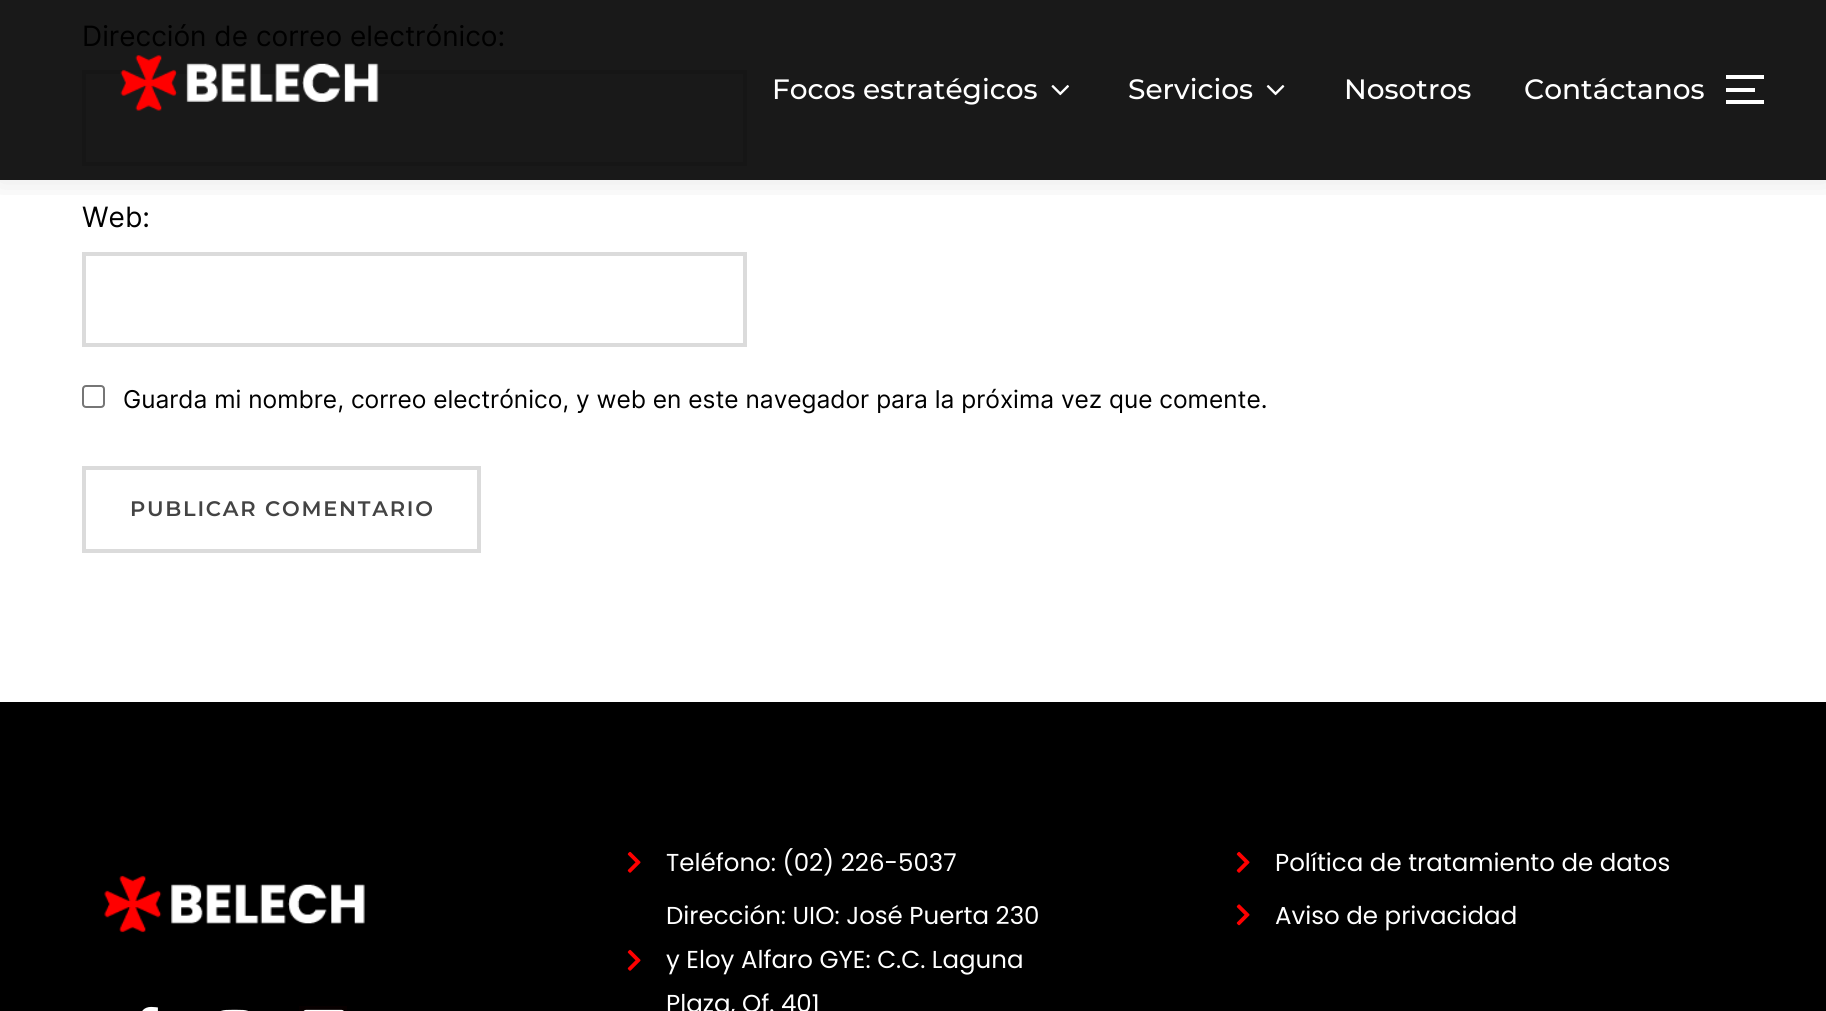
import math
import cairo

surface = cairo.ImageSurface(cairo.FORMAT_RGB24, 1826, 1011)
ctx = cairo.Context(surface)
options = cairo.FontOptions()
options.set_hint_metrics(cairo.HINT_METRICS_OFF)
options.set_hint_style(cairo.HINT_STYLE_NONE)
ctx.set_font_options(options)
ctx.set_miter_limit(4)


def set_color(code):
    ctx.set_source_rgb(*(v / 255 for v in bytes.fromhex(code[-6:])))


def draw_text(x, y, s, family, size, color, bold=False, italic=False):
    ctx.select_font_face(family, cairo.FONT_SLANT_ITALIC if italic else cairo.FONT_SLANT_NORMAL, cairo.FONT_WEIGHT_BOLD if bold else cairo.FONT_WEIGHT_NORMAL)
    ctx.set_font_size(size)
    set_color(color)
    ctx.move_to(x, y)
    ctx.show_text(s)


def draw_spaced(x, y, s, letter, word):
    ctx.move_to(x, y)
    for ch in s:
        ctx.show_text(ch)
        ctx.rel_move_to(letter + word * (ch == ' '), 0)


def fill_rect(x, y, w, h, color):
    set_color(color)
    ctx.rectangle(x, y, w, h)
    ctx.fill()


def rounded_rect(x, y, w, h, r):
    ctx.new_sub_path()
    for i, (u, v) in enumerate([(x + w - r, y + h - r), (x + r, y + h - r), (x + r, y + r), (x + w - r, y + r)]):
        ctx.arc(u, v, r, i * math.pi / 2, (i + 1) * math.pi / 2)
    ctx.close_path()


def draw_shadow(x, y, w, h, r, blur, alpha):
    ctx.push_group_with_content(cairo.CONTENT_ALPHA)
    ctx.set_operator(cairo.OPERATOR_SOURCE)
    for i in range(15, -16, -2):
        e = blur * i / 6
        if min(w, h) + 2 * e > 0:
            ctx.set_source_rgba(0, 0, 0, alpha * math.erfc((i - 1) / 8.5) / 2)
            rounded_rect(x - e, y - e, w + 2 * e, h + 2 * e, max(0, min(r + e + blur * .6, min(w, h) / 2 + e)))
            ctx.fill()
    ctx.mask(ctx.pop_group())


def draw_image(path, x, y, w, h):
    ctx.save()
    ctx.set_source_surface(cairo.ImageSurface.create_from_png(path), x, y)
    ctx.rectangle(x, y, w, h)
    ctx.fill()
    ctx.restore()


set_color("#ffffff")
ctx.paint()
fill_rect(0, 0, 1826, 180, "#191919")
draw_text(82, 46, "Dirección de correo electrónico:", "Inter", 28, "#000000")
ctx.rectangle(84, 72, 661, 92)
set_color("#161616")
ctx.set_line_width(4)
ctx.stroke()
draw_text(82, 227, "Web:", "Inter", 28, "#000000")
ctx.rectangle(84, 254, 661, 91)
set_color("#dbdbdb")
ctx.stroke()
rounded_rect(83, 386, 21, 21, 3)
set_color("#767676")
ctx.set_line_width(2)
ctx.stroke()
draw_text(123, 408, "Guarda mi nombre, correo electrónico, y web en este navegador para la próxima vez que comente.", "Inter", 24.5, "#000000")
ctx.rectangle(84, 468, 395, 83)
set_color("#dbdbdb")
ctx.set_line_width(4)
ctx.stroke()
ctx.select_font_face("Montserrat SemiBold")
ctx.set_font_size(21)
set_color("#444444")
draw_spaced(130, 516, "PUBLICAR COMENTARIO", 1.75, 0)
fill_rect(0, 702, 1826, 309, "#000000")
draw_image("assets/img1.png", 104, 875, 261, 58)
draw_image("assets/img2.png", 142, 1006, 16, 5)
draw_image("assets/img3.png", 221, 1009, 27, 2)
fill_rect(299, 1006, 48, 5, "#070000")
draw_image("assets/img4.png", 303, 1009, 41, 2)
draw_image("assets/img5.png", 627, 851, 14, 22)
draw_text(666, 871, "Teléfono: (02) 226-5037", "Poppins", 24.5, "#ffffff")
draw_image("assets/img5.png", 627, 949, 14, 22)
draw_text(666, 924, "Dirección: UIO: José Puerta 230", "Poppins", 24.5, "#ffffff")
draw_text(666, 968, "y Eloy Alfaro GYE: C.C. Laguna", "Poppins", 24.5, "#ffffff")
draw_text(666, 1012, "Plaza, Of. 401", "Poppins", 24.5, "#ffffff")
draw_image("assets/img5.png", 1236, 851, 14, 22)
draw_text(1275, 871, "Política de tratamiento de datos", "Poppins", 24.5, "#ffffff")
draw_image("assets/img6.png", 1236, 904, 14, 22)
draw_text(1275, 924, "Aviso de privacidad", "Poppins", 24.5, "#ffffff")
ctx.save()
ctx.rectangle(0, 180, 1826, 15)
ctx.clip()
set_color("#000000")
draw_shadow(-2, -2, 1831, 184, 0, 16, 0.1)
ctx.restore()
draw_image("assets/img7.png", 120, 55, 259, 56)
draw_text(772, 99, "Focos estratégicos", "Montserrat Medium", 28, "#ffffff")
draw_image("assets/img8.png", 1051, 85, 18, 11)
draw_text(1128, 99, "Servicios", "Montserrat Medium", 28, "#ffffff")
draw_image("assets/img9.png", 1266, 85, 19, 11)
draw_text(1344, 99, "Nosotros", "Montserrat Medium", 28, "#ffffff")
draw_text(1524, 99, "Contáctanos", "Montserrat Medium", 28, "#ffffff")
fill_rect(1726, 75, 38, 4, "#ffffff")
fill_rect(1726, 88, 29, 4, "#ffffff")
fill_rect(1726, 100, 38, 4, "#ffffff")
surface.write_to_png("output.png")
